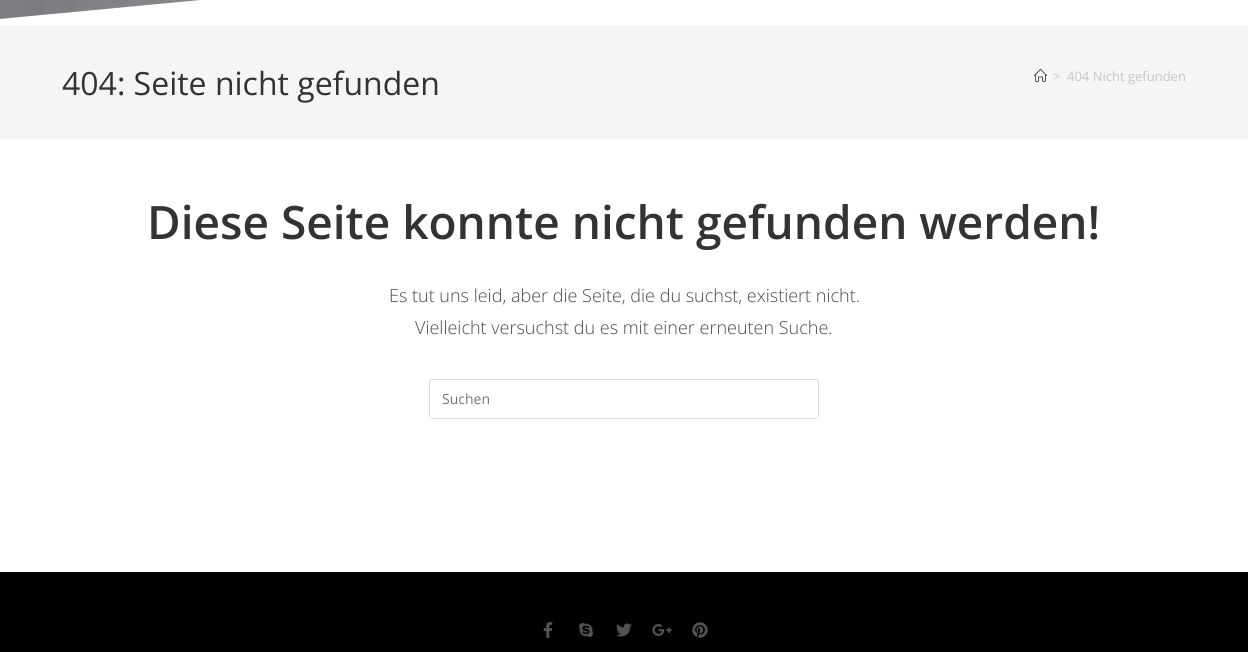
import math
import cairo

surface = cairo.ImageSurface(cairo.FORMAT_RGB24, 1248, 652)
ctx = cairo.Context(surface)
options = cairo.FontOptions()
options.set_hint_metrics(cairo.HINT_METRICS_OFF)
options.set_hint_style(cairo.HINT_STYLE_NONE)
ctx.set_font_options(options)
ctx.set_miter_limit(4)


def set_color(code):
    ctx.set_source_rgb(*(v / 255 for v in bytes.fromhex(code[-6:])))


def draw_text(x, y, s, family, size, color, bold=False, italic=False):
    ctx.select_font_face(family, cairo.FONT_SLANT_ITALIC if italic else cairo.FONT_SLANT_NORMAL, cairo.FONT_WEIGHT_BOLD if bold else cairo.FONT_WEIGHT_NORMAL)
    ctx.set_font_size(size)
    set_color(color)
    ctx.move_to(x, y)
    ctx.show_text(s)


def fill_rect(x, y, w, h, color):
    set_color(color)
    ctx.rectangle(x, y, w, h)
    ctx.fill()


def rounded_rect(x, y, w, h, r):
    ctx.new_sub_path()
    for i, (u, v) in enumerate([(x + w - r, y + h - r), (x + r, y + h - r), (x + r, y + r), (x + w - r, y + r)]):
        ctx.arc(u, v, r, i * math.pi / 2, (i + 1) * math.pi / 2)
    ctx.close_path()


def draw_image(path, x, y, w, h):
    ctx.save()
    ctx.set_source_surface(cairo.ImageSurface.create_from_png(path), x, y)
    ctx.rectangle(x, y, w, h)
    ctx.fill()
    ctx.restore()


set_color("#ffffff")
ctx.paint()
fill_rect(0, 26, 1248, 1, "#f1f1f1")
draw_image("assets/img1.png", 0, 0, 201, 19)
set_color("#ffffff")
ctx.new_path()
ctx.move_to(-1, 19)
ctx.line_to(-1, 26)
ctx.line_to(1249, 26)
ctx.line_to(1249, -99)
ctx.close_path()
ctx.fill()
fill_rect(0, 27, 1248, 112, "#f5f5f5")
draw_text(62, 95, "404: Seite nicht gefunden", "Open Sans", 32, "#333333")
draw_image("assets/img2.png", 1034, 68, 13, 14)
draw_text(1053, 81, ">", "Open Sans", 13, "#c6c6c6")
draw_text(1067, 81, "404 Nicht gefunden", "Open Sans", 13, "#c6c6c6")
draw_text(147, 239, "Diese Seite konnte nicht gefunden werden!", "Open Sans SemiBold", 46, "#333333")
draw_text(389, 302, "Es tut uns leid, aber die Seite, die du suchst, existiert nicht.", "Open Sans Light", 18, "#4a4a4a")
draw_text(415, 334, "Vielleicht versuchst du es mit einer erneuten Suche.", "Open Sans Light", 18, "#4a4a4a")
rounded_rect(429.5, 379.5, 389, 39, 2.5)
set_color("#dddddd")
ctx.set_line_width(1)
ctx.stroke()
draw_text(442, 404, "Suchen", "Open Sans", 14, "#757575")
fill_rect(0, 572, 1248, 80, "#000000")
draw_image("assets/img3.png", 543, 622, 10, 16)
draw_image("assets/img4.png", 579, 623, 14, 14)
draw_image("assets/img5.png", 616, 623, 16, 14)
draw_image("assets/img6.png", 652, 624, 20, 12)
draw_image("assets/img7.png", 692, 622, 16, 16)
surface.write_to_png("output.png")
